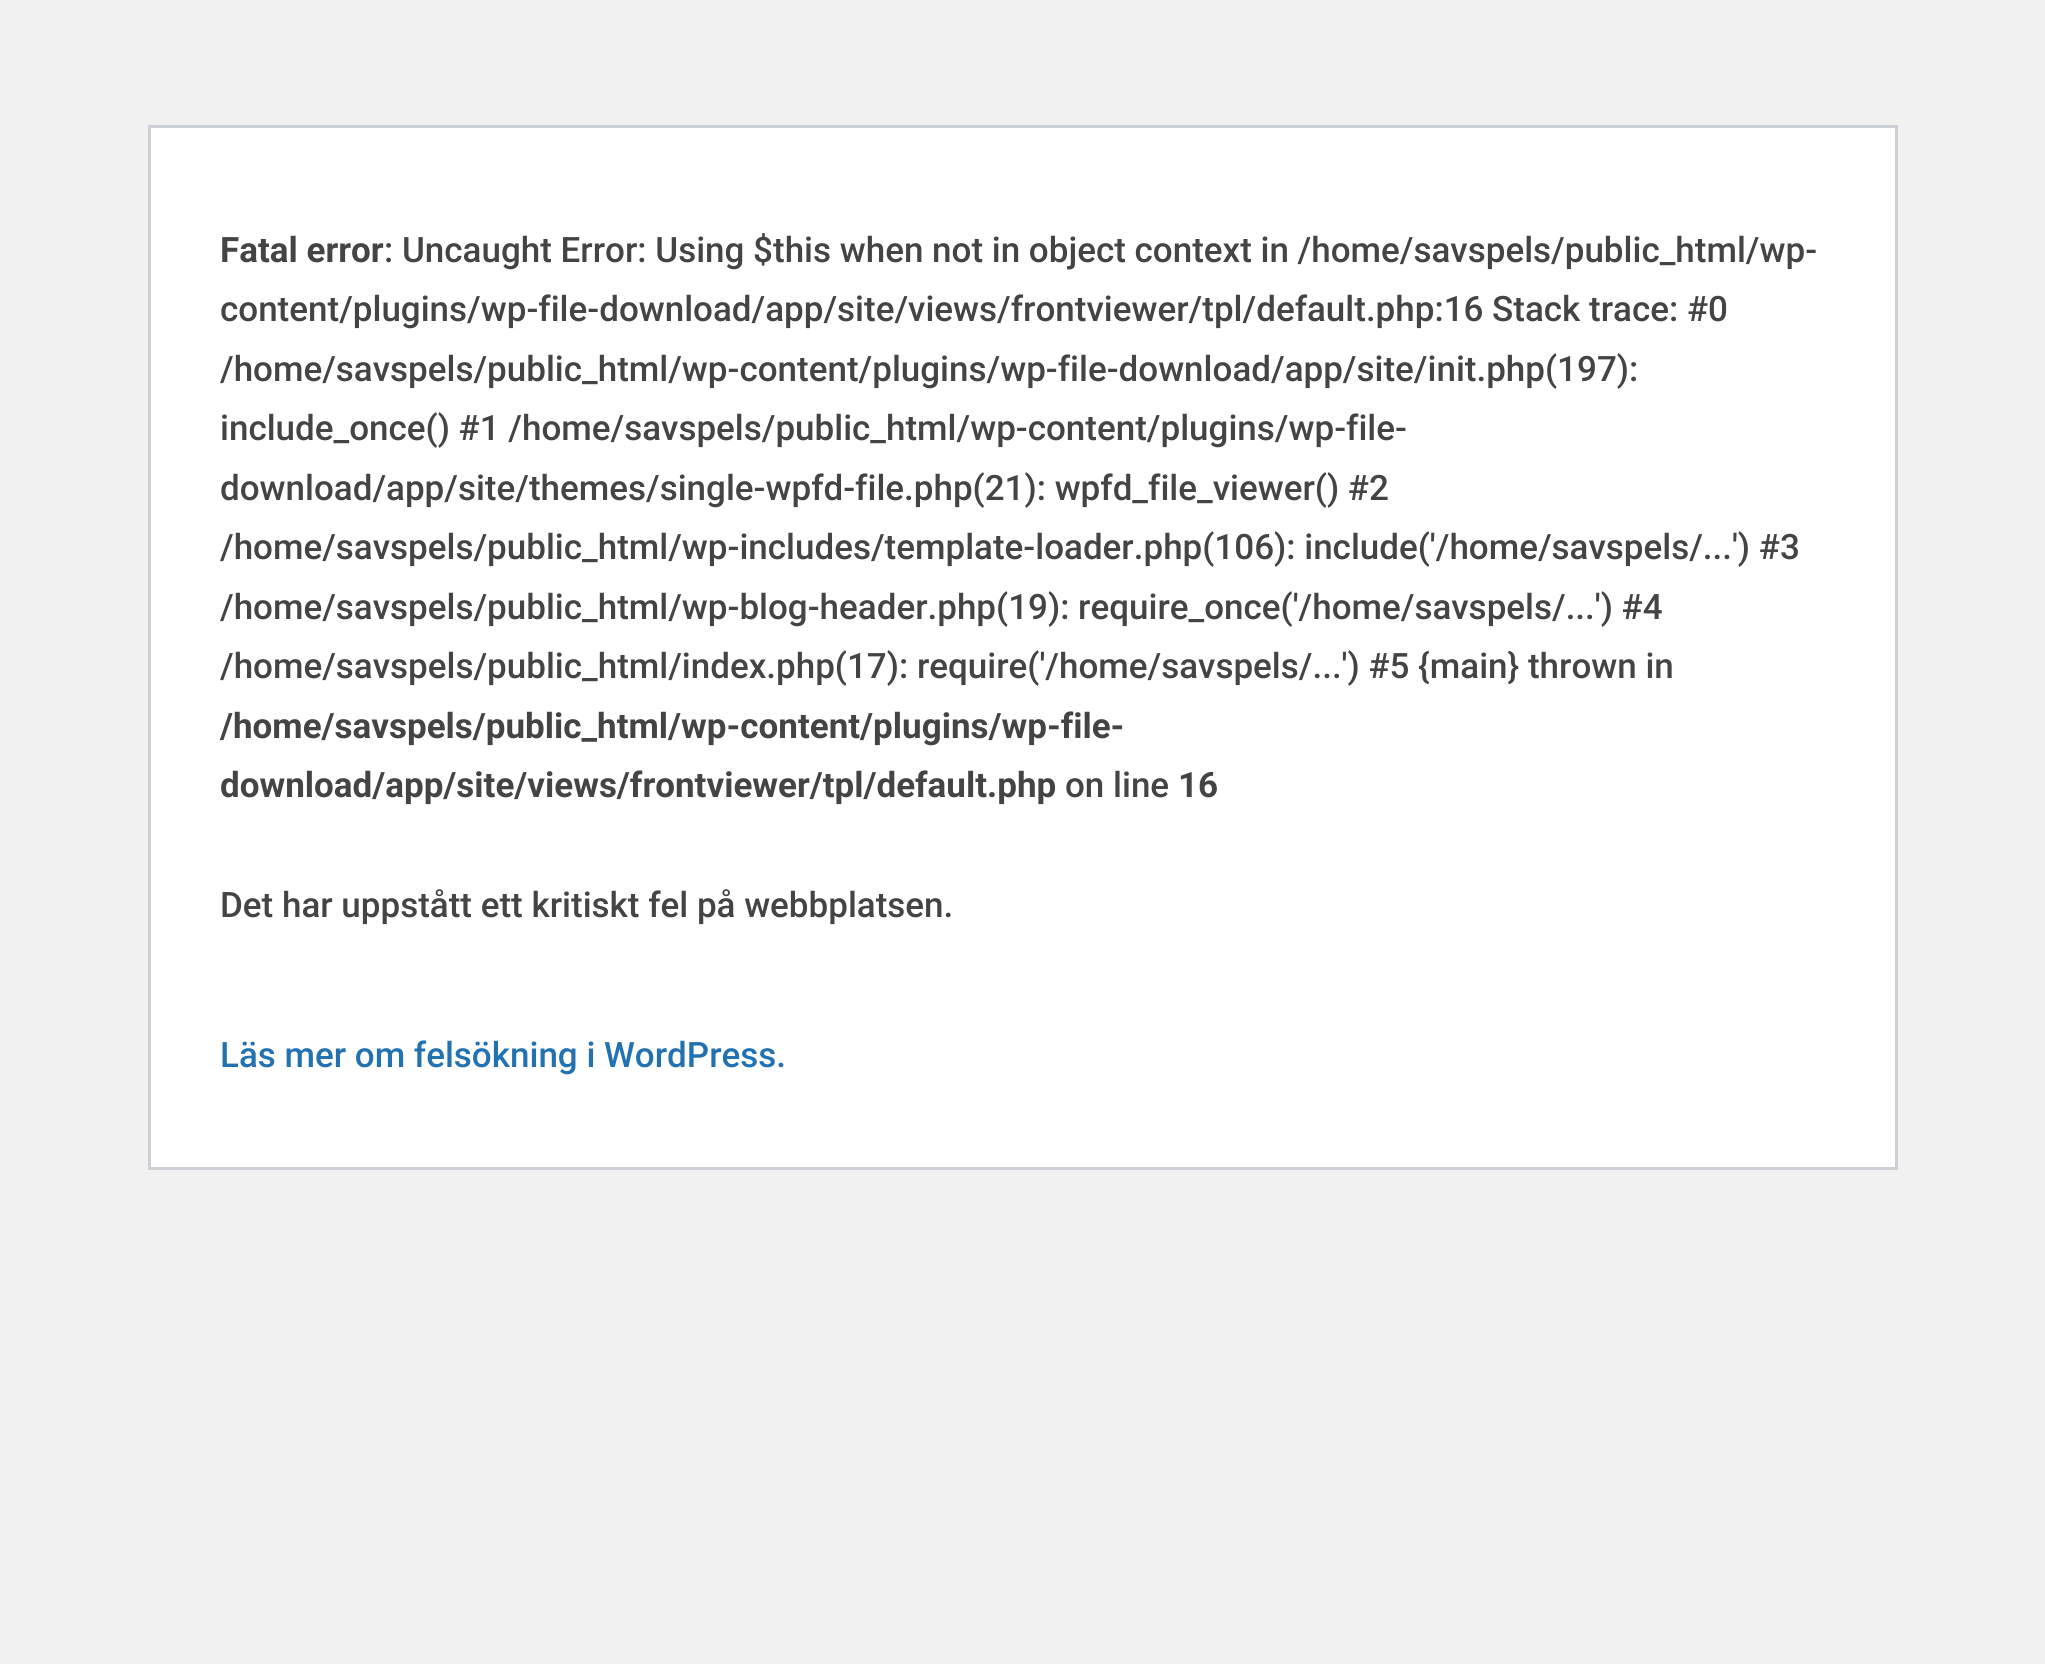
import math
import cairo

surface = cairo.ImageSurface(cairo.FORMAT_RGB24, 2045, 1664)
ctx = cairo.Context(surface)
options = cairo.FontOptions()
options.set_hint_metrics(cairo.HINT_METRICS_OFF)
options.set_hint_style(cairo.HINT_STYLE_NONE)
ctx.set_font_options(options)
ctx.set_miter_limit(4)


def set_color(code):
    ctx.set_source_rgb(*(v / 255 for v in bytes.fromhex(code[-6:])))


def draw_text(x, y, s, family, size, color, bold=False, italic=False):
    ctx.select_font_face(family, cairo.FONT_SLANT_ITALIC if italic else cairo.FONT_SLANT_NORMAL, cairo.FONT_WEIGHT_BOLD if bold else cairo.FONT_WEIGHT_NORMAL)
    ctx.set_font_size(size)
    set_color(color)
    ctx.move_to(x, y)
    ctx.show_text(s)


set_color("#f1f1f1")
ctx.paint()
set_color("#ffffff")
ctx.rectangle(149.5, 126.5, 1747, 1042)
ctx.fill_preserve()
set_color("#ccd0d4")
ctx.set_line_width(3)
ctx.stroke()
draw_text(220, 262, "Fatal error", "Roboto", 35, "#444444", bold=True)
draw_text(384, 262, ": Uncaught Error: Using $this when not in object context in /home/savspels/public_html/wp-", "Roboto Medium", 35, "#444444")
draw_text(220, 321, "content/plugins/wp-file-download/app/site/views/frontviewer/tpl/default.php:16 Stack trace: #0", "Roboto Medium", 35, "#444444")
draw_text(220, 381, "/home/savspels/public_html/wp-content/plugins/wp-file-download/app/site/init.php(197):", "Roboto Medium", 35, "#444444")
draw_text(220, 440, "include_once() #1 /home/savspels/public_html/wp-content/plugins/wp-file-", "Roboto Medium", 35, "#444444")
draw_text(220, 500, "download/app/site/themes/single-wpfd-file.php(21): wpfd_file_viewer() #2", "Roboto Medium", 35, "#444444")
draw_text(220, 559, "/home/savspels/public_html/wp-includes/template-loader.php(106): include('/home/savspels/...') #3", "Roboto Medium", 35, "#444444")
draw_text(220, 619, "/home/savspels/public_html/wp-blog-header.php(19): require_once('/home/savspels/...') #4", "Roboto Medium", 35, "#444444")
draw_text(220, 678, "/home/savspels/public_html/index.php(17): require('/home/savspels/...') #5 {main} thrown in", "Roboto Medium", 35, "#444444")
draw_text(220, 738, "/home/savspels/public_html/wp-content/plugins/wp-file-", "Roboto", 35, "#444444", bold=True)
draw_text(220, 797, "download/app/site/views/frontviewer/tpl/default.php", "Roboto", 35, "#444444", bold=True)
draw_text(1065, 797, "on line", "Roboto Medium", 35, "#444444")
draw_text(1178, 797, "16", "Roboto", 35, "#444444", bold=True)
draw_text(220, 917, "Det har uppstått ett kritiskt fel på webbplatsen.", "Roboto Medium", 35, "#444444")
draw_text(220, 1067, "Läs mer om felsökning i WordPress.", "Roboto Medium", 35, "#2271b1")
surface.write_to_png("output.png")
